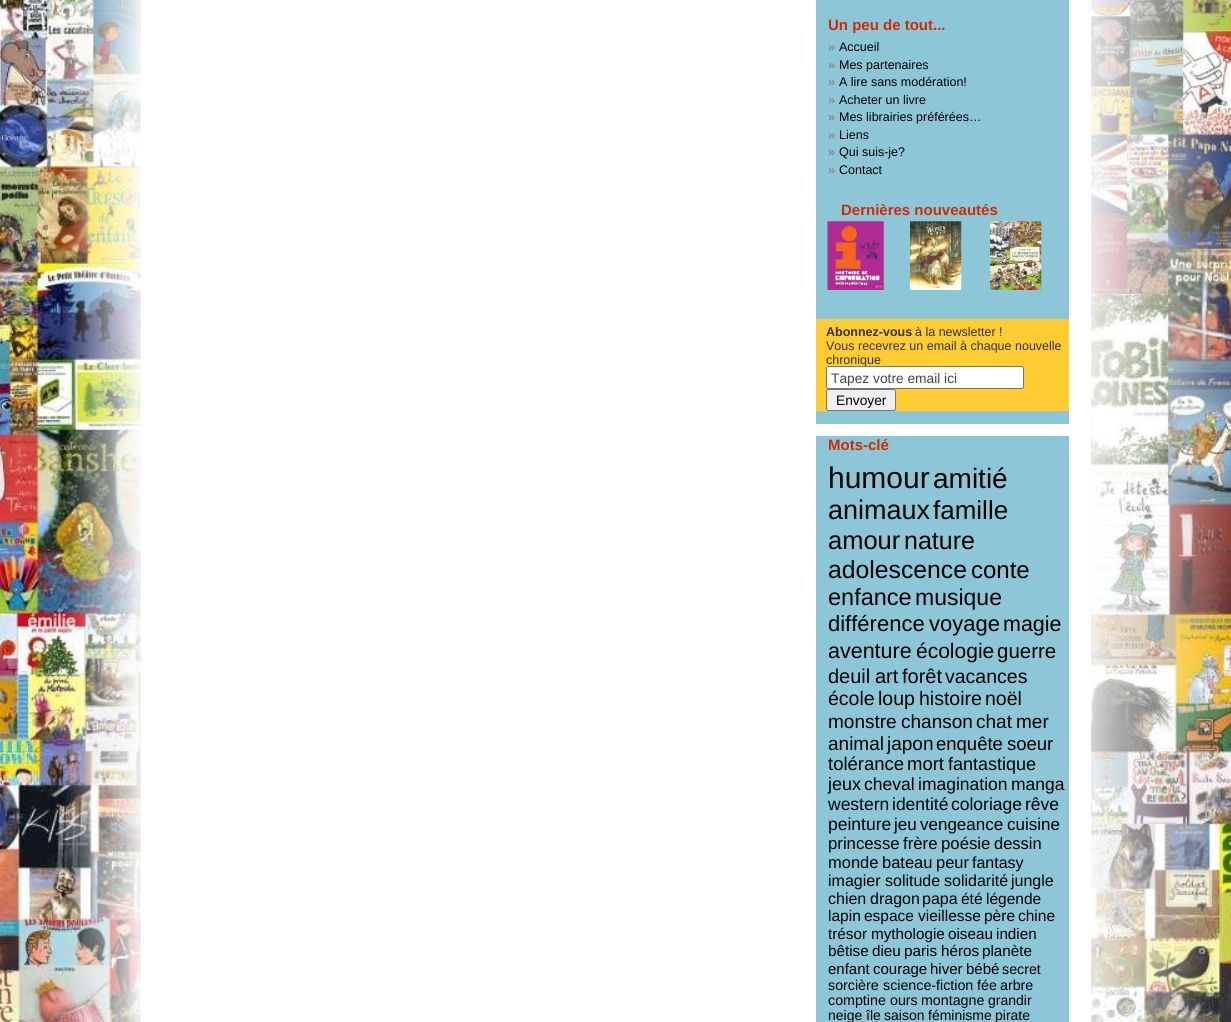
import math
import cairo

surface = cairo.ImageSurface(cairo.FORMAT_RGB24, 1231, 1022)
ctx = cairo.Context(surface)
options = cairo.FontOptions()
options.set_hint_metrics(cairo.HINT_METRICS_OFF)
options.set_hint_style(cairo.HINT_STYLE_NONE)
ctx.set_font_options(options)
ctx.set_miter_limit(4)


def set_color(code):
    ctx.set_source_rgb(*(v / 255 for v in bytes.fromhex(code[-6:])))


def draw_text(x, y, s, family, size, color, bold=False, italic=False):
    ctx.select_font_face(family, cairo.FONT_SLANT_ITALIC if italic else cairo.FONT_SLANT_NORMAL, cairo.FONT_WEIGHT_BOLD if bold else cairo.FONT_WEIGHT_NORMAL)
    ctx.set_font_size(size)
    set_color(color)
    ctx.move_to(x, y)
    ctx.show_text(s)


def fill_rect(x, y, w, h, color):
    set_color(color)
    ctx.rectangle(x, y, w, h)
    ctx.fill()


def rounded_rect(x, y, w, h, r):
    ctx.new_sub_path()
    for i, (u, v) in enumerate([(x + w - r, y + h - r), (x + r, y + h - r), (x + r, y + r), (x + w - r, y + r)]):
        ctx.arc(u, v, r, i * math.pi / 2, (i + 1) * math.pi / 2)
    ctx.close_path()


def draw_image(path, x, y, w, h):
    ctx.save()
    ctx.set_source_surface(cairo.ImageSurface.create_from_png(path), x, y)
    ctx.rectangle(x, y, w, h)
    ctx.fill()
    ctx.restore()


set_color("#ffffff")
ctx.paint()
draw_image("assets/img1.png", 0, 0, 1231, 1022)
fill_rect(141, 0, 950, 1022, "#ffffff")
fill_rect(816, 0, 253, 424, "#8cc6d7")
draw_text(828, 30, "Un peu de tout...", "Liberation Sans", 15, "#ce2d04", bold=True)
draw_text(828, 51, "»", "Liberation Sans", 12.5, "#777777")
draw_text(839, 51, "Accueil", "Liberation Sans", 12.5, "#000000")
draw_text(828, 69, "»", "Liberation Sans", 12.5, "#777777")
draw_text(839, 69, "Mes partenaires", "Liberation Sans", 12.5, "#000000")
draw_text(828, 86, "»", "Liberation Sans", 12.5, "#777777")
draw_text(839, 86, "A lire sans modération!", "Liberation Sans", 12.5, "#000000")
draw_text(828, 104, "»", "Liberation Sans", 12.5, "#777777")
draw_text(839, 104, "Acheter un livre", "Liberation Sans", 12.5, "#000000")
draw_text(828, 121, "»", "Liberation Sans", 12.5, "#777777")
draw_text(839, 121, "Mes librairies préférées…", "Liberation Sans", 12.5, "#000000")
draw_text(828, 139, "»", "Liberation Sans", 12.5, "#777777")
draw_text(839, 139, "Liens", "Liberation Sans", 12.5, "#000000")
draw_text(828, 156, "»", "Liberation Sans", 12.5, "#777777")
draw_text(839, 156, "Qui suis-je?", "Liberation Sans", 12.5, "#000000")
draw_text(828, 174, "»", "Liberation Sans", 12.5, "#777777")
draw_text(839, 174, "Contact", "Liberation Sans", 12.5, "#000000")
draw_text(841, 215, "Dernières nouveautés", "Liberation Sans", 15, "#ce2d04", bold=True)
draw_image("assets/img2.png", 827, 221, 57, 69)
draw_image("assets/img3.png", 910, 221, 52, 69)
draw_image("assets/img4.png", 990, 221, 52, 69)
fill_rect(816, 319, 253, 92, "#ffcc33")
draw_text(826, 336, "Abonnez-vous", "Liberation Sans", 12.5, "#333333", bold=True)
draw_text(915, 336, "à la newsletter !", "Liberation Sans", 12.5, "#333333")
draw_text(826, 350, "Vous recevrez un email à chaque nouvelle", "Liberation Sans", 12.5, "#333333")
draw_text(826, 364, "chronique", "Liberation Sans", 12.5, "#333333")
set_color("#ffffff")
rounded_rect(826.5, 366.5, 197, 22, 2)
ctx.fill_preserve()
set_color("#767676")
ctx.set_line_width(1)
ctx.stroke()
draw_text(831, 383, "Tapez votre email ici", "Liberation Sans", 13.75, "#444444")
set_color("#efefef")
rounded_rect(826.5, 389.5, 69, 21, 2)
ctx.fill_preserve()
set_color("#767676")
ctx.stroke()
draw_text(836, 405, "Envoyer", "Liberation Sans", 13.75, "#000000")
fill_rect(816, 436, 253, 586, "#8cc6d7")
draw_text(828, 450, "Mots-clé", "Liberation Sans", 15, "#ce2d04", bold=True)
draw_text(828, 488, "humour", "Liberation Sans", 30, "#000000")
draw_text(933, 488, "amitié", "Liberation Sans", 28, "#000000")
draw_text(828, 519, "animaux", "Liberation Sans", 27, "#000000")
draw_text(933, 519, "famille", "Liberation Sans", 26, "#000000")
draw_text(828, 549, "amour", "Liberation Sans", 25.5, "#000000")
draw_text(904, 549, "nature", "Liberation Sans", 25, "#000000")
draw_text(828, 578, "adolescence", "Liberation Sans", 24.75, "#000000")
draw_text(971, 578, "conte", "Liberation Sans", 24, "#000000")
draw_text(828, 605, "enfance", "Liberation Sans", 23.5, "#000000")
draw_text(915, 605, "musique", "Liberation Sans", 23, "#000000")
draw_text(828, 631, "différence", "Liberation Sans", 22, "#000000")
draw_text(929, 631, "voyage", "Liberation Sans", 22, "#000000")
draw_text(1003, 631, "magie", "Liberation Sans", 21.5, "#000000")
draw_text(828, 658, "aventure", "Liberation Sans", 21.5, "#000000")
draw_text(916, 658, "écologie", "Liberation Sans", 21, "#000000")
draw_text(997, 658, "guerre", "Liberation Sans", 20.5, "#000000")
draw_text(828, 683, "deuil", "Liberation Sans", 20, "#000000")
draw_text(875, 683, "art", "Liberation Sans", 20, "#000000")
draw_text(902, 683, "forêt", "Liberation Sans", 20, "#000000")
draw_text(945, 683, "vacances", "Liberation Sans", 19.5, "#000000")
draw_text(828, 705, "école", "Liberation Sans", 19.5, "#000000")
draw_text(878, 705, "loup", "Liberation Sans", 19.5, "#000000")
draw_text(919, 705, "histoire", "Liberation Sans", 19.5, "#000000")
draw_text(985, 705, "noël", "Liberation Sans", 19.5, "#000000")
draw_text(828, 728, "monstre", "Liberation Sans", 19, "#000000")
draw_text(901, 728, "chanson", "Liberation Sans", 19, "#000000")
draw_text(976, 728, "chat", "Liberation Sans", 19, "#000000")
draw_text(1016, 728, "mer", "Liberation Sans", 19, "#000000")
draw_text(828, 750, "animal", "Liberation Sans", 19, "#000000")
draw_text(887, 750, "japon", "Liberation Sans", 19, "#000000")
draw_text(936, 750, "enquête", "Liberation Sans", 18.5, "#000000")
draw_text(1007, 750, "soeur", "Liberation Sans", 18.5, "#000000")
draw_text(828, 770, "tolérance", "Liberation Sans", 18.5, "#000000")
draw_text(907, 770, "mort", "Liberation Sans", 18.5, "#000000")
draw_text(948, 770, "fantastique", "Liberation Sans", 18, "#000000")
draw_text(828, 790, "jeux", "Liberation Sans", 18, "#000000")
draw_text(864, 790, "cheval", "Liberation Sans", 17.5, "#000000")
draw_text(918, 790, "imagination", "Liberation Sans", 17.5, "#000000")
draw_text(1011, 790, "manga", "Liberation Sans", 17.5, "#000000")
draw_text(828, 810, "western", "Liberation Sans", 17.5, "#000000")
draw_text(892, 810, "identité", "Liberation Sans", 17.5, "#000000")
draw_text(951, 810, "coloriage", "Liberation Sans", 17.5, "#000000")
draw_text(1025, 810, "rêve", "Liberation Sans", 17.5, "#000000")
draw_text(828, 830, "peinture", "Liberation Sans", 17.5, "#000000")
draw_text(894, 830, "jeu", "Liberation Sans", 17, "#000000")
draw_text(920, 830, "vengeance", "Liberation Sans", 17, "#000000")
draw_text(1007, 830, "cuisine", "Liberation Sans", 17, "#000000")
draw_text(828, 849, "princesse", "Liberation Sans", 16.75, "#000000")
draw_text(903, 849, "frère", "Liberation Sans", 16.75, "#000000")
draw_text(941, 849, "poésie", "Liberation Sans", 16.75, "#000000")
draw_text(994, 849, "dessin", "Liberation Sans", 16.5, "#000000")
draw_text(828, 868, "monde", "Liberation Sans", 16.5, "#000000")
draw_text(882, 868, "bateau", "Liberation Sans", 16.5, "#000000")
draw_text(936, 868, "peur", "Liberation Sans", 16.5, "#000000")
draw_text(972, 868, "fantasy", "Liberation Sans", 16, "#000000")
draw_text(828, 886, "imagier", "Liberation Sans", 16, "#000000")
draw_text(885, 886, "solitude", "Liberation Sans", 16, "#000000")
draw_text(944, 886, "solidarité", "Liberation Sans", 16, "#000000")
draw_text(1011, 886, "jungle", "Liberation Sans", 16, "#000000")
draw_text(828, 904, "chien", "Liberation Sans", 16, "#000000")
draw_text(870, 904, "dragon", "Liberation Sans", 16, "#000000")
draw_text(922, 904, "papa", "Liberation Sans", 16, "#000000")
draw_text(961, 904, "été", "Liberation Sans", 15.5, "#000000")
draw_text(986, 904, "légende", "Liberation Sans", 15.5, "#000000")
draw_text(828, 921, "lapin", "Liberation Sans", 15.5, "#000000")
draw_text(864, 921, "espace", "Liberation Sans", 15.5, "#000000")
draw_text(918, 921, "vieillesse", "Liberation Sans", 15.5, "#000000")
draw_text(984, 921, "père", "Liberation Sans", 15.5, "#000000")
draw_text(1018, 921, "chine", "Liberation Sans", 15.5, "#000000")
draw_text(828, 939, "trésor", "Liberation Sans", 15.25, "#000000")
draw_text(871, 939, "mythologie", "Liberation Sans", 15.25, "#000000")
draw_text(948, 939, "oiseau", "Liberation Sans", 15.25, "#000000")
draw_text(996, 939, "indien", "Liberation Sans", 15.25, "#000000")
draw_text(828, 956, "bêtise", "Liberation Sans", 15.25, "#000000")
draw_text(872, 956, "dieu", "Liberation Sans", 15.25, "#000000")
draw_text(904, 956, "paris", "Liberation Sans", 15.25, "#000000")
draw_text(941, 956, "héros", "Liberation Sans", 15.25, "#000000")
draw_text(982, 956, "planète", "Liberation Sans", 15.25, "#000000")
draw_text(828, 974, "enfant", "Liberation Sans", 15, "#000000")
draw_text(873, 974, "courage", "Liberation Sans", 15, "#000000")
draw_text(930, 974, "hiver", "Liberation Sans", 15, "#000000")
draw_text(966, 974, "bébé", "Liberation Sans", 15, "#000000")
draw_text(1002, 974, "secret", "Liberation Sans", 14.25, "#000000")
draw_text(828, 990, "sorcière", "Liberation Sans", 14.25, "#000000")
draw_text(883, 990, "science-fiction", "Liberation Sans", 14.25, "#000000")
draw_text(977, 990, "fée", "Liberation Sans", 14.25, "#000000")
draw_text(1000, 990, "arbre", "Liberation Sans", 14.25, "#000000")
draw_text(828, 1005, "comptine", "Liberation Sans", 14.25, "#000000")
draw_text(890, 1005, "ours", "Liberation Sans", 14.25, "#000000")
draw_text(921, 1005, "montagne", "Liberation Sans", 14.25, "#000000")
draw_text(988, 1005, "grandir", "Liberation Sans", 14, "#000000")
draw_text(828, 1020, "neige", "Liberation Sans", 14, "#000000")
draw_text(866, 1020, "île", "Liberation Sans", 14, "#000000")
draw_text(884, 1020, "saison", "Liberation Sans", 14, "#000000")
draw_text(928, 1020, "féminisme", "Liberation Sans", 14, "#000000")
draw_text(995, 1020, "pirate", "Liberation Sans", 14, "#000000")
surface.write_to_png("output.png")
